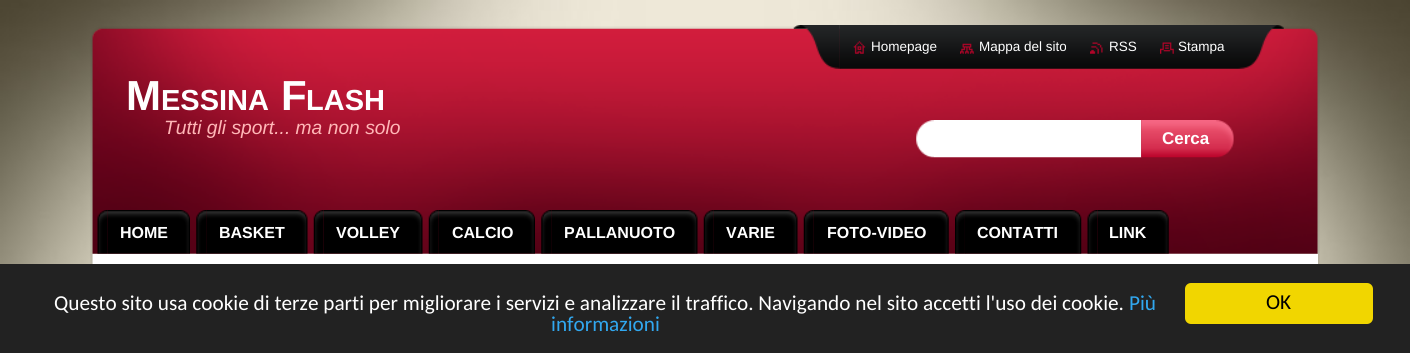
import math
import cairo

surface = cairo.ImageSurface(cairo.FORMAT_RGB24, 1410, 353)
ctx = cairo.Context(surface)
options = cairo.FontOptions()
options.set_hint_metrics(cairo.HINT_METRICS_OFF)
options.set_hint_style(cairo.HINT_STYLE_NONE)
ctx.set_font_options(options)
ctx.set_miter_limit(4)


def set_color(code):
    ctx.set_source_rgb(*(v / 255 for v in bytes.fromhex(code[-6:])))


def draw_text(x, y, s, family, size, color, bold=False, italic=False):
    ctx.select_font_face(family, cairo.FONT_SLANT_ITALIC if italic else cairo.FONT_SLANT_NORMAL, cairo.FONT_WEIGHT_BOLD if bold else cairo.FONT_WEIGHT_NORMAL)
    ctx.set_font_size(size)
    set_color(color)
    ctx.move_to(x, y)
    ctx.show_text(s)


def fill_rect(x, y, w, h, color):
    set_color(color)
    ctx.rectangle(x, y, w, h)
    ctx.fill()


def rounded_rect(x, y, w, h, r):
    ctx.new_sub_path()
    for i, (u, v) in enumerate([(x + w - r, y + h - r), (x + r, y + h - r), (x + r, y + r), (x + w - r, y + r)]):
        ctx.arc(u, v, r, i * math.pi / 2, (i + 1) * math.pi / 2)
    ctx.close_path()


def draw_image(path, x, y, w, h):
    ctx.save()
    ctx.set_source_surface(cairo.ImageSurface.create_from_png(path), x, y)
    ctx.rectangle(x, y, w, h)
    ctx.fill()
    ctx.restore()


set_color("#ffffff")
ctx.paint()
draw_image("assets/img1.png", 0, 0, 1410, 264)
draw_image("assets/img8.png", 90, 26, 1230, 228)
draw_image("assets/img2.png", 793, 25, 48, 44)
draw_image("assets/img3.png", 840, 25, 444, 44)
draw_image("assets/img4.png", 853, 41, 13, 13)
draw_text(871, 51, "Homepage", "Liberation Sans", 13.5, "#ffffff")
draw_image("assets/img5.png", 960, 43, 14, 11)
draw_text(979, 51, "Mappa del sito", "Liberation Sans", 13.5, "#ffffff")
draw_image("assets/img6.png", 1090, 42, 13, 12)
draw_text(1109, 51, "RSS", "Liberation Sans", 13.5, "#ffffff")
draw_image("assets/img7.png", 1160, 42, 14, 12)
draw_text(1178, 51, "Stampa", "Liberation Sans", 13.5, "#ffffff")
draw_text(126, 110, "M", "Liberation Sans", 42, "#ffffff", bold=True)
draw_text(161, 110, "ESSINA", "Liberation Sans", 29, "#ffffff", bold=True)
draw_text(281, 110, "F", "Liberation Sans", 42, "#ffffff", bold=True)
draw_text(306, 110, "LASH", "Liberation Sans", 29, "#ffffff", bold=True)
draw_text(164, 134, "Tutti gli sport... ma non solo", "Liberation Sans", 19.25, "#ffb7b7", italic=True)
draw_image("assets/img9.png", 916, 120, 226, 38)
draw_image("assets/img10.png", 1141, 120, 93, 38)
draw_text(1162, 144, "Cerca", "Liberation Sans", 17, "#ffffff", bold=True)
draw_image("assets/img29.png", 90, 253, 1230, 11)
draw_image("assets/img11.png", 97, 210, 11, 44)
draw_image("assets/img12.png", 107, 210, 83, 44)
draw_text(120, 238, "HOME", "Liberation Sans", 16, "#ffffff", bold=True)
draw_image("assets/img13.png", 196, 210, 11, 44)
draw_image("assets/img14.png", 206, 210, 102, 44)
draw_text(219, 238, "BASKET", "Liberation Sans", 16, "#ffffff", bold=True)
draw_image("assets/img15.png", 313, 210, 11, 44)
draw_image("assets/img16.png", 323, 210, 100, 44)
draw_text(336, 238, "VOLLEY", "Liberation Sans", 16, "#ffffff", bold=True)
draw_image("assets/img17.png", 428, 210, 11, 44)
draw_image("assets/img18.png", 438, 210, 97, 44)
draw_text(452, 238, "CALCIO", "Liberation Sans", 16, "#ffffff", bold=True)
draw_image("assets/img19.png", 541, 210, 11, 44)
draw_image("assets/img20.png", 551, 210, 147, 44)
draw_text(564, 238, "PALLANUOTO", "Liberation Sans", 16, "#ffffff", bold=True)
draw_image("assets/img21.png", 703, 210, 11, 44)
draw_image("assets/img22.png", 713, 210, 85, 44)
draw_text(726, 238, "VARIE", "Liberation Sans", 16, "#ffffff", bold=True)
draw_image("assets/img23.png", 803, 210, 11, 44)
draw_image("assets/img24.png", 813, 210, 136, 44)
draw_text(827, 238, "FOTO-VIDEO", "Liberation Sans", 16, "#ffffff", bold=True)
draw_image("assets/img25.png", 955, 210, 11, 44)
draw_image("assets/img26.png", 965, 210, 117, 44)
draw_text(977, 238, "CONTATTI", "Liberation Sans", 16, "#ffffff", bold=True)
draw_image("assets/img27.png", 1087, 210, 11, 44)
draw_image("assets/img28.png", 1097, 210, 72, 44)
draw_text(1109, 238, "LINK", "Liberation Sans", 16, "#ffffff", bold=True)
fill_rect(1317, 254, 1, 10, "#ffffff")
fill_rect(0, 264, 1410, 89, "#222222")
draw_text(54, 310, "Questo sito usa cookie di terze parti per migliorare i servizi e analizzare il traffico. Navigando nel sito accetti l'uso dei cookie.", "Carlito", 21.25, "#ffffff")
draw_text(1129, 310, "Più", "Carlito", 21.25, "#31a8f0")
draw_text(551, 331, "informazioni", "Carlito", 21.25, "#31a8f0")
set_color("#f1d600")
rounded_rect(1185, 283, 188, 41, 6)
ctx.fill()
draw_text(1266, 309, "OK", "Carlito", 21.25, "#000000")
surface.write_to_png("output.png")
